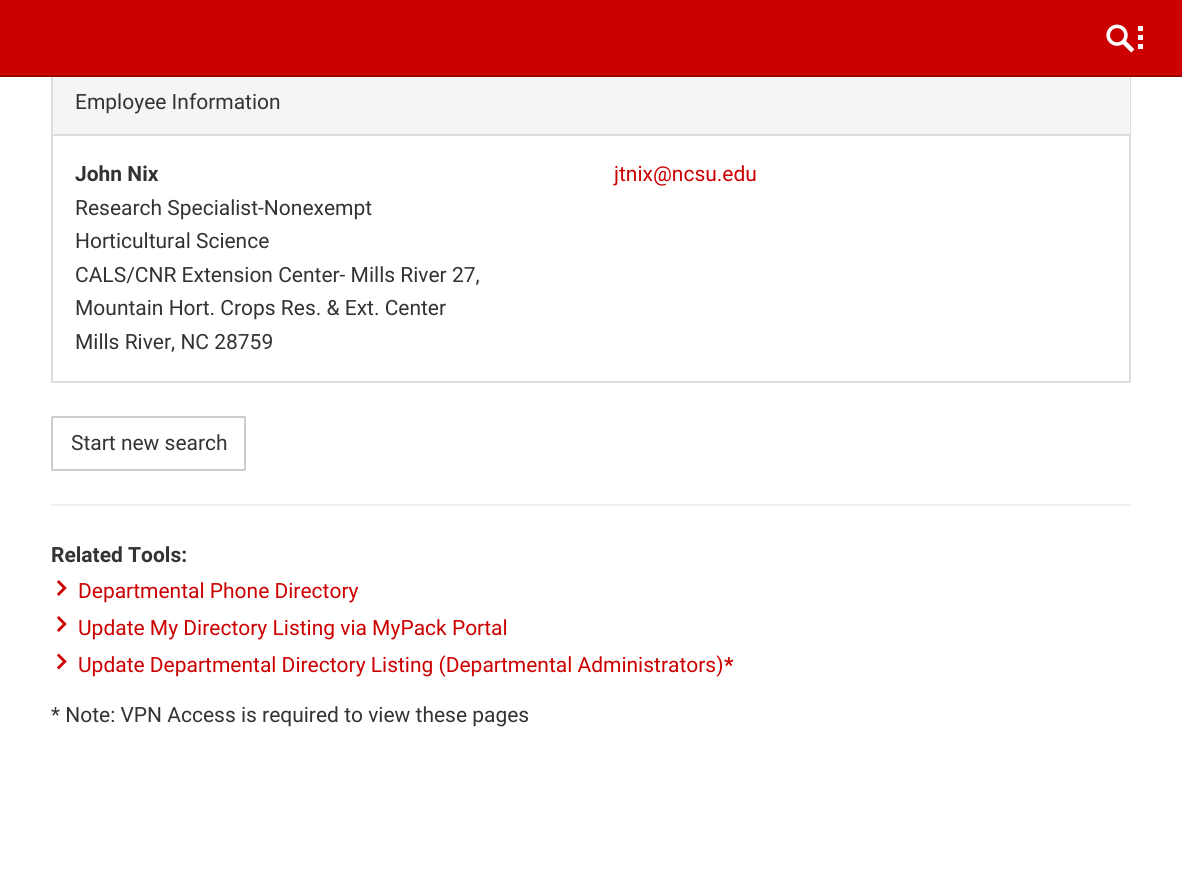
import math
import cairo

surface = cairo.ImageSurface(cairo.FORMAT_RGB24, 1182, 890)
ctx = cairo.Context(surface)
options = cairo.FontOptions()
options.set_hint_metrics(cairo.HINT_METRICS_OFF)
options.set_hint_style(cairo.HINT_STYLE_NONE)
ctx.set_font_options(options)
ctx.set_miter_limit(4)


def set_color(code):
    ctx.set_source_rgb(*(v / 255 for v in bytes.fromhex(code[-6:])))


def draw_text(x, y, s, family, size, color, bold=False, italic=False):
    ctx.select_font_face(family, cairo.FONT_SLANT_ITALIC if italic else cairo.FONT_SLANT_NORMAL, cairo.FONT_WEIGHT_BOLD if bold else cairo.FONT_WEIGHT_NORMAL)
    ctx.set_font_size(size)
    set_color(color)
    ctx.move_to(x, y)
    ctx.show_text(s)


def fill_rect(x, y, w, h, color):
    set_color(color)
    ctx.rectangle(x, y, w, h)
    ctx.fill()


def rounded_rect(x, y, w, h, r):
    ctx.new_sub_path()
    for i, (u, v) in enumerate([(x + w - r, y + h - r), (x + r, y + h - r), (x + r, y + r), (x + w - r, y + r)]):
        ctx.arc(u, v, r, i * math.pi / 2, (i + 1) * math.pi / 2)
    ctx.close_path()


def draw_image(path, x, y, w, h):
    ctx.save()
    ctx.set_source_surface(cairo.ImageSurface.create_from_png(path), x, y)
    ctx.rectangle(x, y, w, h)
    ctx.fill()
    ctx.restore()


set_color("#ffffff")
ctx.paint()
rounded_rect(52, 69, 1078, 313, 0.5)
set_color("#dddddd")
ctx.stroke()
fill_rect(0, 0, 1182, 75, "#cc0000")
fill_rect(0, 75, 1182, 2, "#990000")
draw_image("assets/img1.png", 1106, 24, 37, 29)
fill_rect(53, 77, 1077, 57, "#f5f5f5")
fill_rect(53, 134, 1077, 2, "#dddddd")
draw_text(75, 109, "Employee Information", "Roboto", 21, "#333333")
draw_text(75, 181, "John Nix", "Roboto", 21, "#333333", bold=True)
draw_text(75, 215, "Research Specialist-Nonexempt", "Roboto", 21, "#333333")
draw_text(75, 248, "Horticultural Science", "Roboto", 21, "#333333")
draw_text(75, 282, "CALS/CNR Extension Center- Mills River 27,", "Roboto", 21, "#333333")
draw_text(75, 315, "Mountain Hort. Crops Res. & Ext. Center", "Roboto", 21, "#333333")
draw_text(75, 349, "Mills River, NC 28759", "Roboto", 21, "#333333")
draw_text(614, 181, "jtnix@ncsu.edu", "Roboto", 21, "#cc0000")
rounded_rect(52, 417, 193, 53, 0.5)
set_color("#cccccc")
ctx.stroke()
draw_text(71, 450, "Start new search", "Roboto", 21, "#333333")
fill_rect(51, 504, 1080, 2, "#eeeeee")
draw_text(51, 562, "Related Tools:", "Roboto", 21, "#333333", bold=True)
draw_image("assets/img2.png", 57, 580, 10, 16)
draw_text(78, 598, "Departmental Phone Directory", "Roboto", 21, "#cc0000")
draw_image("assets/img2.png", 57, 616, 10, 16)
draw_text(78, 635, "Update My Directory Listing via MyPack Portal", "Roboto", 21, "#cc0000")
draw_image("assets/img3.png", 56, 653, 11, 17)
draw_text(78, 672, "Update Departmental Directory Listing (Departmental Administrators)", "Roboto", 21, "#cc0000")
draw_text(724, 672, "*", "Roboto", 21, "#cc0000", bold=True)
draw_text(51, 722, "* Note: VPN Access is required to view these pages", "Roboto", 21, "#333333")
surface.write_to_png("output.png")
